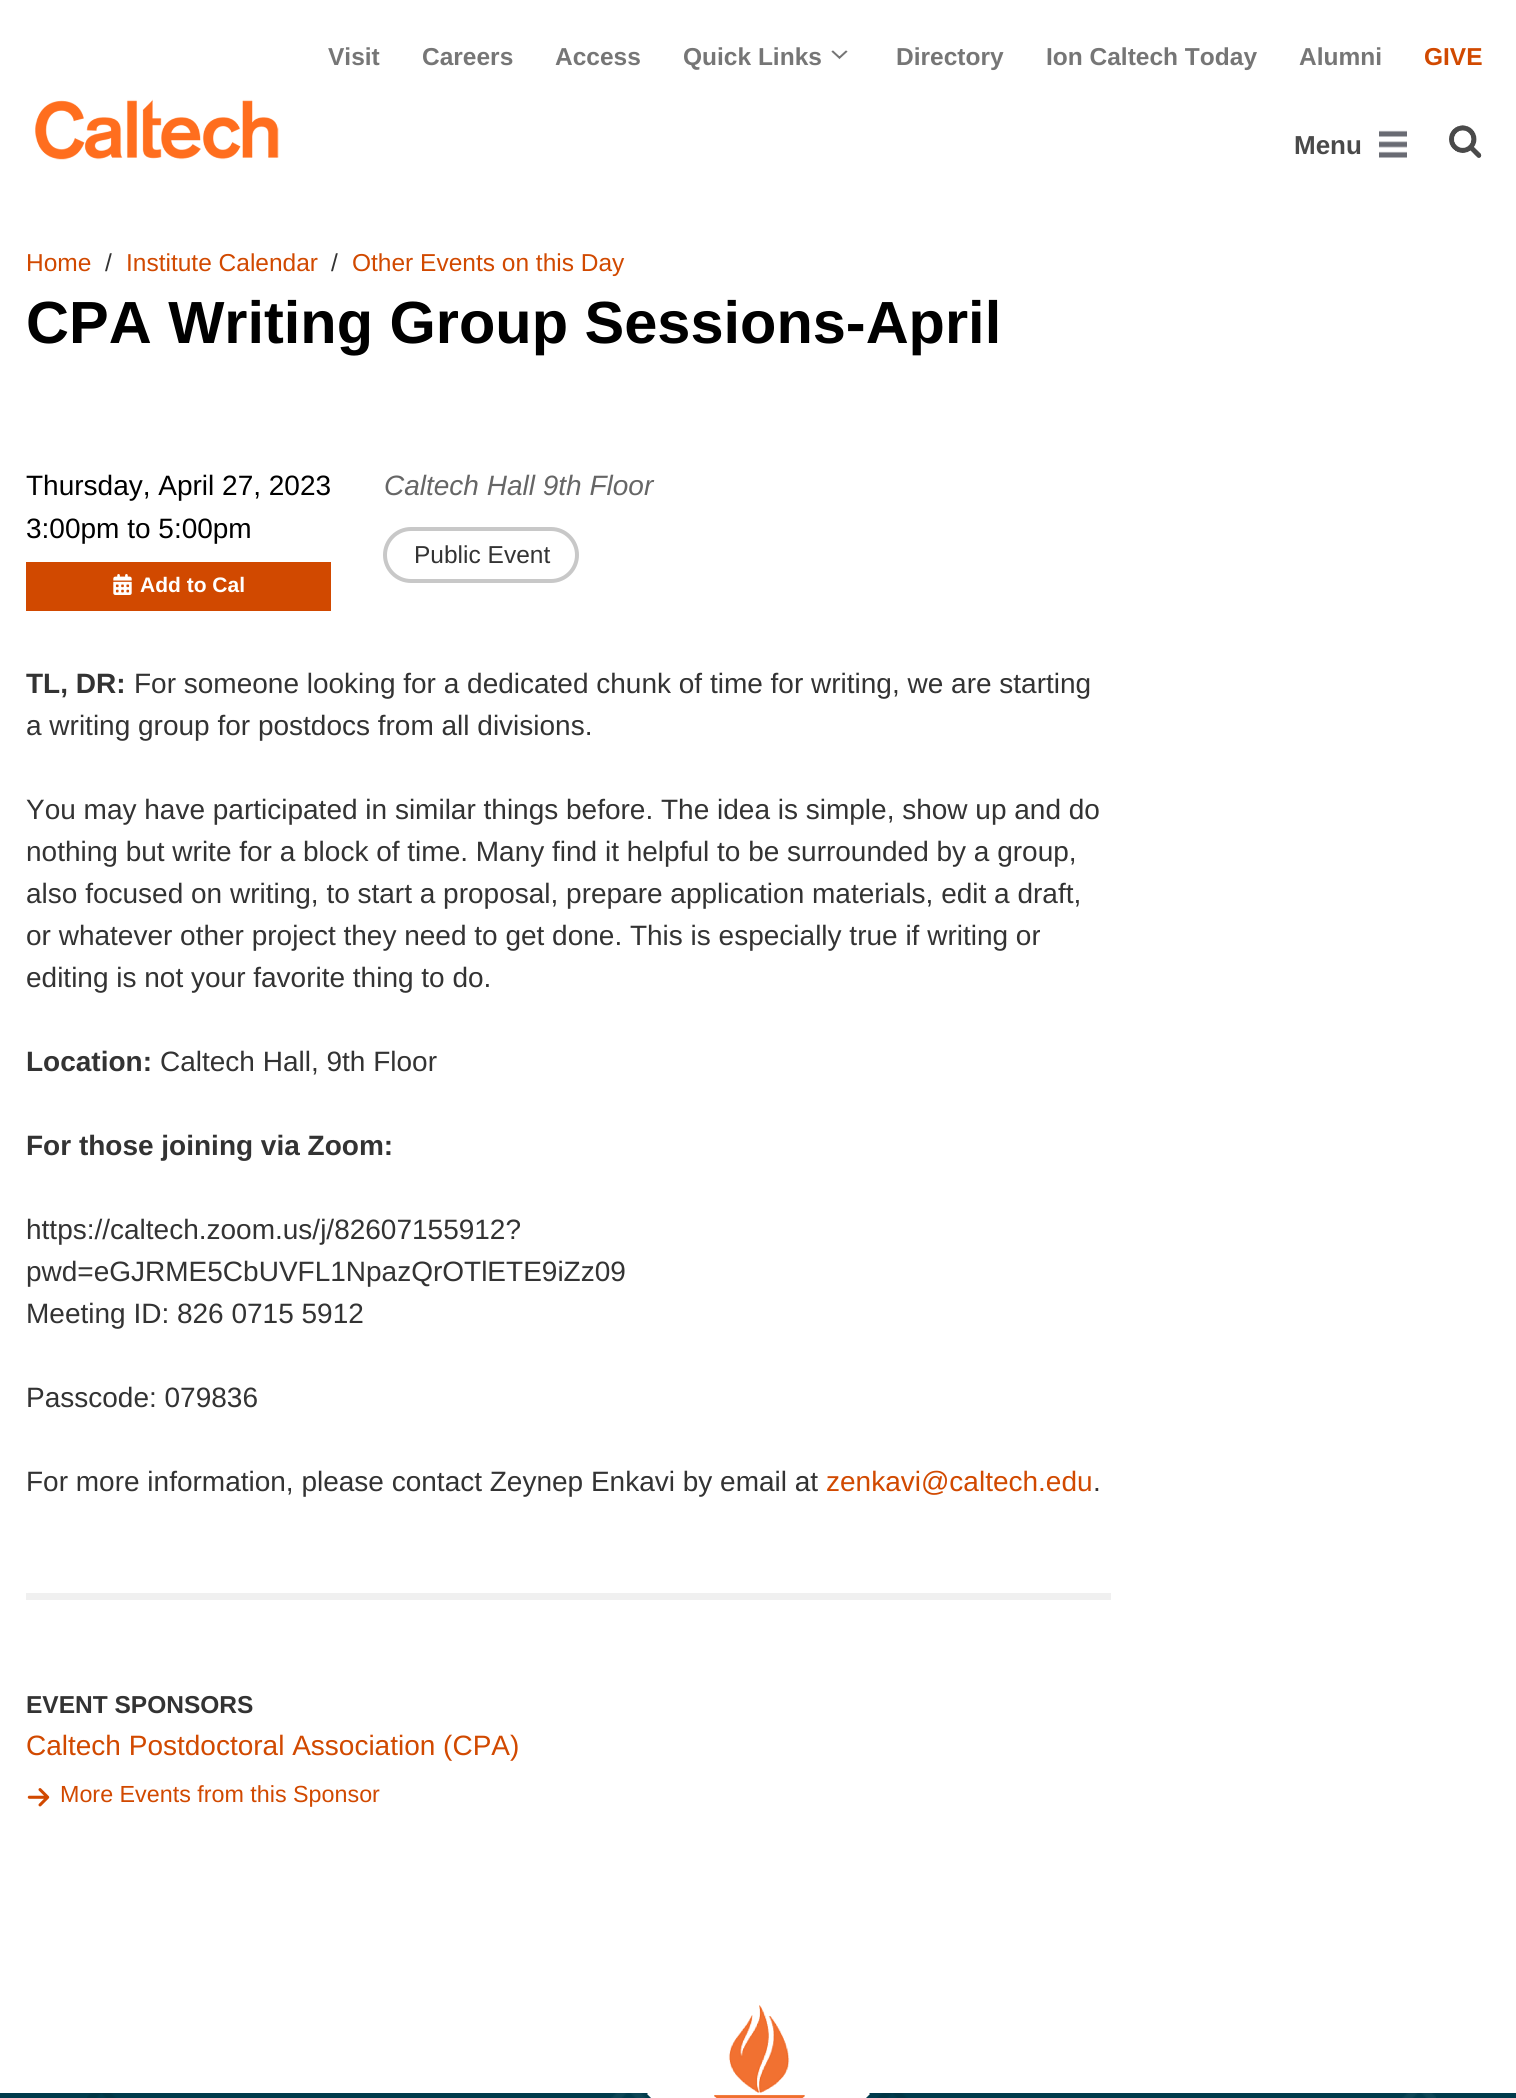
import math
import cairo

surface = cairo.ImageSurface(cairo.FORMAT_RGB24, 1516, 2098)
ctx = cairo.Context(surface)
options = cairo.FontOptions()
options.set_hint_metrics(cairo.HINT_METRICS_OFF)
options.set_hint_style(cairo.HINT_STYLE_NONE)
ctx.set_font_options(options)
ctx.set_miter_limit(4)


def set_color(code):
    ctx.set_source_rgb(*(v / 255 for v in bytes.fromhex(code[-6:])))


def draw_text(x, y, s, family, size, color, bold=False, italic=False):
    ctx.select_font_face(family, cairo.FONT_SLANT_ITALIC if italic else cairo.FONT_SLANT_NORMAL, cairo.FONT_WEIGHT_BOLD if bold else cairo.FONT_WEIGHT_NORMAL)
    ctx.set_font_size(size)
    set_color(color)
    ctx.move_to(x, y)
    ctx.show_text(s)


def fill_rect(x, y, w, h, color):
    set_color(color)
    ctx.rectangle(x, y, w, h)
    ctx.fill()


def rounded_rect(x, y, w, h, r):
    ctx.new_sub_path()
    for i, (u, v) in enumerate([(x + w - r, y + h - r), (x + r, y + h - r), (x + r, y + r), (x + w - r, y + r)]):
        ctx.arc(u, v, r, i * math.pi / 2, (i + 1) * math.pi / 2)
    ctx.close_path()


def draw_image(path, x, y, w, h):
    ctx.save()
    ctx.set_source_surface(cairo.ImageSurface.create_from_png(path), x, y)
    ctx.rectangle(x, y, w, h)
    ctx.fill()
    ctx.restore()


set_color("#ffffff")
ctx.paint()
draw_text(328, 65, "Visit", "Liberation Sans", 24.5, "#767676", bold=True)
draw_text(422, 65, "Careers", "Liberation Sans", 24.5, "#767676", bold=True)
draw_text(555, 65, "Access", "Liberation Sans", 24.5, "#767676", bold=True)
draw_text(683, 65, "Quick Links", "Liberation Sans", 24.5, "#767676", bold=True)
draw_image("assets/img1.png", 831, 50, 17, 10)
draw_text(896, 65, "Directory", "Liberation Sans", 24.5, "#767676", bold=True)
draw_text(1046, 65, "Ion Caltech Today", "Liberation Sans", 24.5, "#767676", bold=True)
draw_text(1299, 65, "Alumni", "Liberation Sans", 24.5, "#767676", bold=True)
draw_text(1424, 65, "GIVE", "Liberation Sans", 24.5, "#d14900", bold=True)
draw_image("assets/img2.png", 35, 99, 244, 61)
draw_text(1294, 154, "Menu", "Liberation Sans", 26, "#4a4a4a", bold=True)
draw_image("assets/img3.png", 1379, 130, 28, 28)
draw_image("assets/img4.png", 1449, 125, 33, 33)
draw_text(26, 271, "Home", "Liberation Sans", 24.5, "#d14900")
draw_text(105, 271, "/", "Liberation Sans", 24.5, "#333333")
draw_text(126, 271, "Institute Calendar", "Liberation Sans", 24.5, "#d14900")
draw_text(331, 271, "/", "Liberation Sans", 24.5, "#333333")
draw_text(352, 271, "Other Events on this Day", "Liberation Sans", 24.5, "#d14900")
draw_text(26, 343, "CPA Writing Group Sessions-April", "Liberation Sans", 59.5, "#000000", bold=True)
draw_text(26, 495, "Thursday, April 27, 2023", "Liberation Sans", 28, "#000000")
draw_text(26, 538, "3:00pm to 5:00pm", "Liberation Sans", 28, "#000000")
fill_rect(26, 562, 305, 49, "#d14900")
draw_image("assets/img5.png", 113, 574, 19, 21)
draw_text(140, 592, "Add to Cal", "Liberation Sans", 21, "#ffffff", bold=True)
draw_text(384, 495, "Caltech Hall 9th Floor", "Liberation Sans", 28, "#666666", italic=True)
rounded_rect(385, 529, 192, 52, 26)
set_color("#c8c8c8")
ctx.set_line_width(4)
ctx.stroke()
draw_text(414, 563, "Public Event", "Liberation Sans", 24.5, "#333333")
draw_text(26, 693, "TL, DR:", "Liberation Sans", 28, "#333333", bold=True)
draw_text(134, 693, "For someone looking for a dedicated chunk of time for writing, we are starting", "Liberation Sans", 28, "#333333")
draw_text(26, 735, "a writing group for postdocs from all divisions.", "Liberation Sans", 28, "#333333")
draw_text(26, 819, "You may have participated in similar things before. The idea is simple, show up and do", "Liberation Sans", 28, "#333333")
draw_text(26, 861, "nothing but write for a block of time. Many find it helpful to be surrounded by a group,", "Liberation Sans", 28, "#333333")
draw_text(26, 903, "also focused on writing, to start a proposal, prepare application materials, edit a draft,", "Liberation Sans", 28, "#333333")
draw_text(26, 945, "or whatever other project they need to get done. This is especially true if writing or", "Liberation Sans", 28, "#333333")
draw_text(26, 987, "editing is not your favorite thing to do.", "Liberation Sans", 28, "#333333")
draw_text(26, 1071, "Location:", "Liberation Sans", 28, "#333333", bold=True)
draw_text(160, 1071, "Caltech Hall, 9th Floor", "Liberation Sans", 28, "#333333")
draw_text(26, 1155, "For those joining via Zoom:", "Liberation Sans", 28, "#333333", bold=True)
draw_text(26, 1239, "https://caltech.zoom.us/j/82607155912?", "Liberation Sans", 28, "#333333")
draw_text(26, 1281, "pwd=eGJRME5CbUVFL1NpazQrOTlETE9iZz09", "Liberation Sans", 28, "#333333")
draw_text(26, 1323, "Meeting ID: 826 0715 5912", "Liberation Sans", 28, "#333333")
draw_text(26, 1407, "Passcode: 079836", "Liberation Sans", 28, "#333333")
draw_text(26, 1491, "For more information, please contact Zeynep Enkavi by email at", "Liberation Sans", 28, "#333333")
draw_text(826, 1491, "zenkavi@caltech.edu", "Liberation Sans", 28, "#d14900")
draw_text(1093, 1491, ".", "Liberation Sans", 28, "#333333")
fill_rect(26, 1593, 1085, 7, "#f0f0f0")
draw_text(26, 1713, "EVENT SPONSORS", "Liberation Sans", 24.5, "#333333", bold=True)
draw_text(26, 1755, "Caltech Postdoctoral Association (CPA)", "Liberation Sans", 28, "#d14900")
draw_image("assets/img6.png", 27, 1788, 23, 19)
draw_text(60, 1802, "More Events from this Sponsor", "Liberation Sans", 23.3, "#d14900")
fill_rect(0, 2093, 1516, 5, "#003b4c")
draw_image("assets/img7.png", 87, 2093, 1349, 5)
set_color("#ffffff")
ctx.new_path()
ctx.move_to(759, 1982)
ctx.line_to(870, 2094)
ctx.line_to(759, 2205)
ctx.line_to(647, 2094)
ctx.close_path()
ctx.fill()
draw_image("assets/img8.png", 714, 2005, 91, 93)
surface.write_to_png("output.png")
